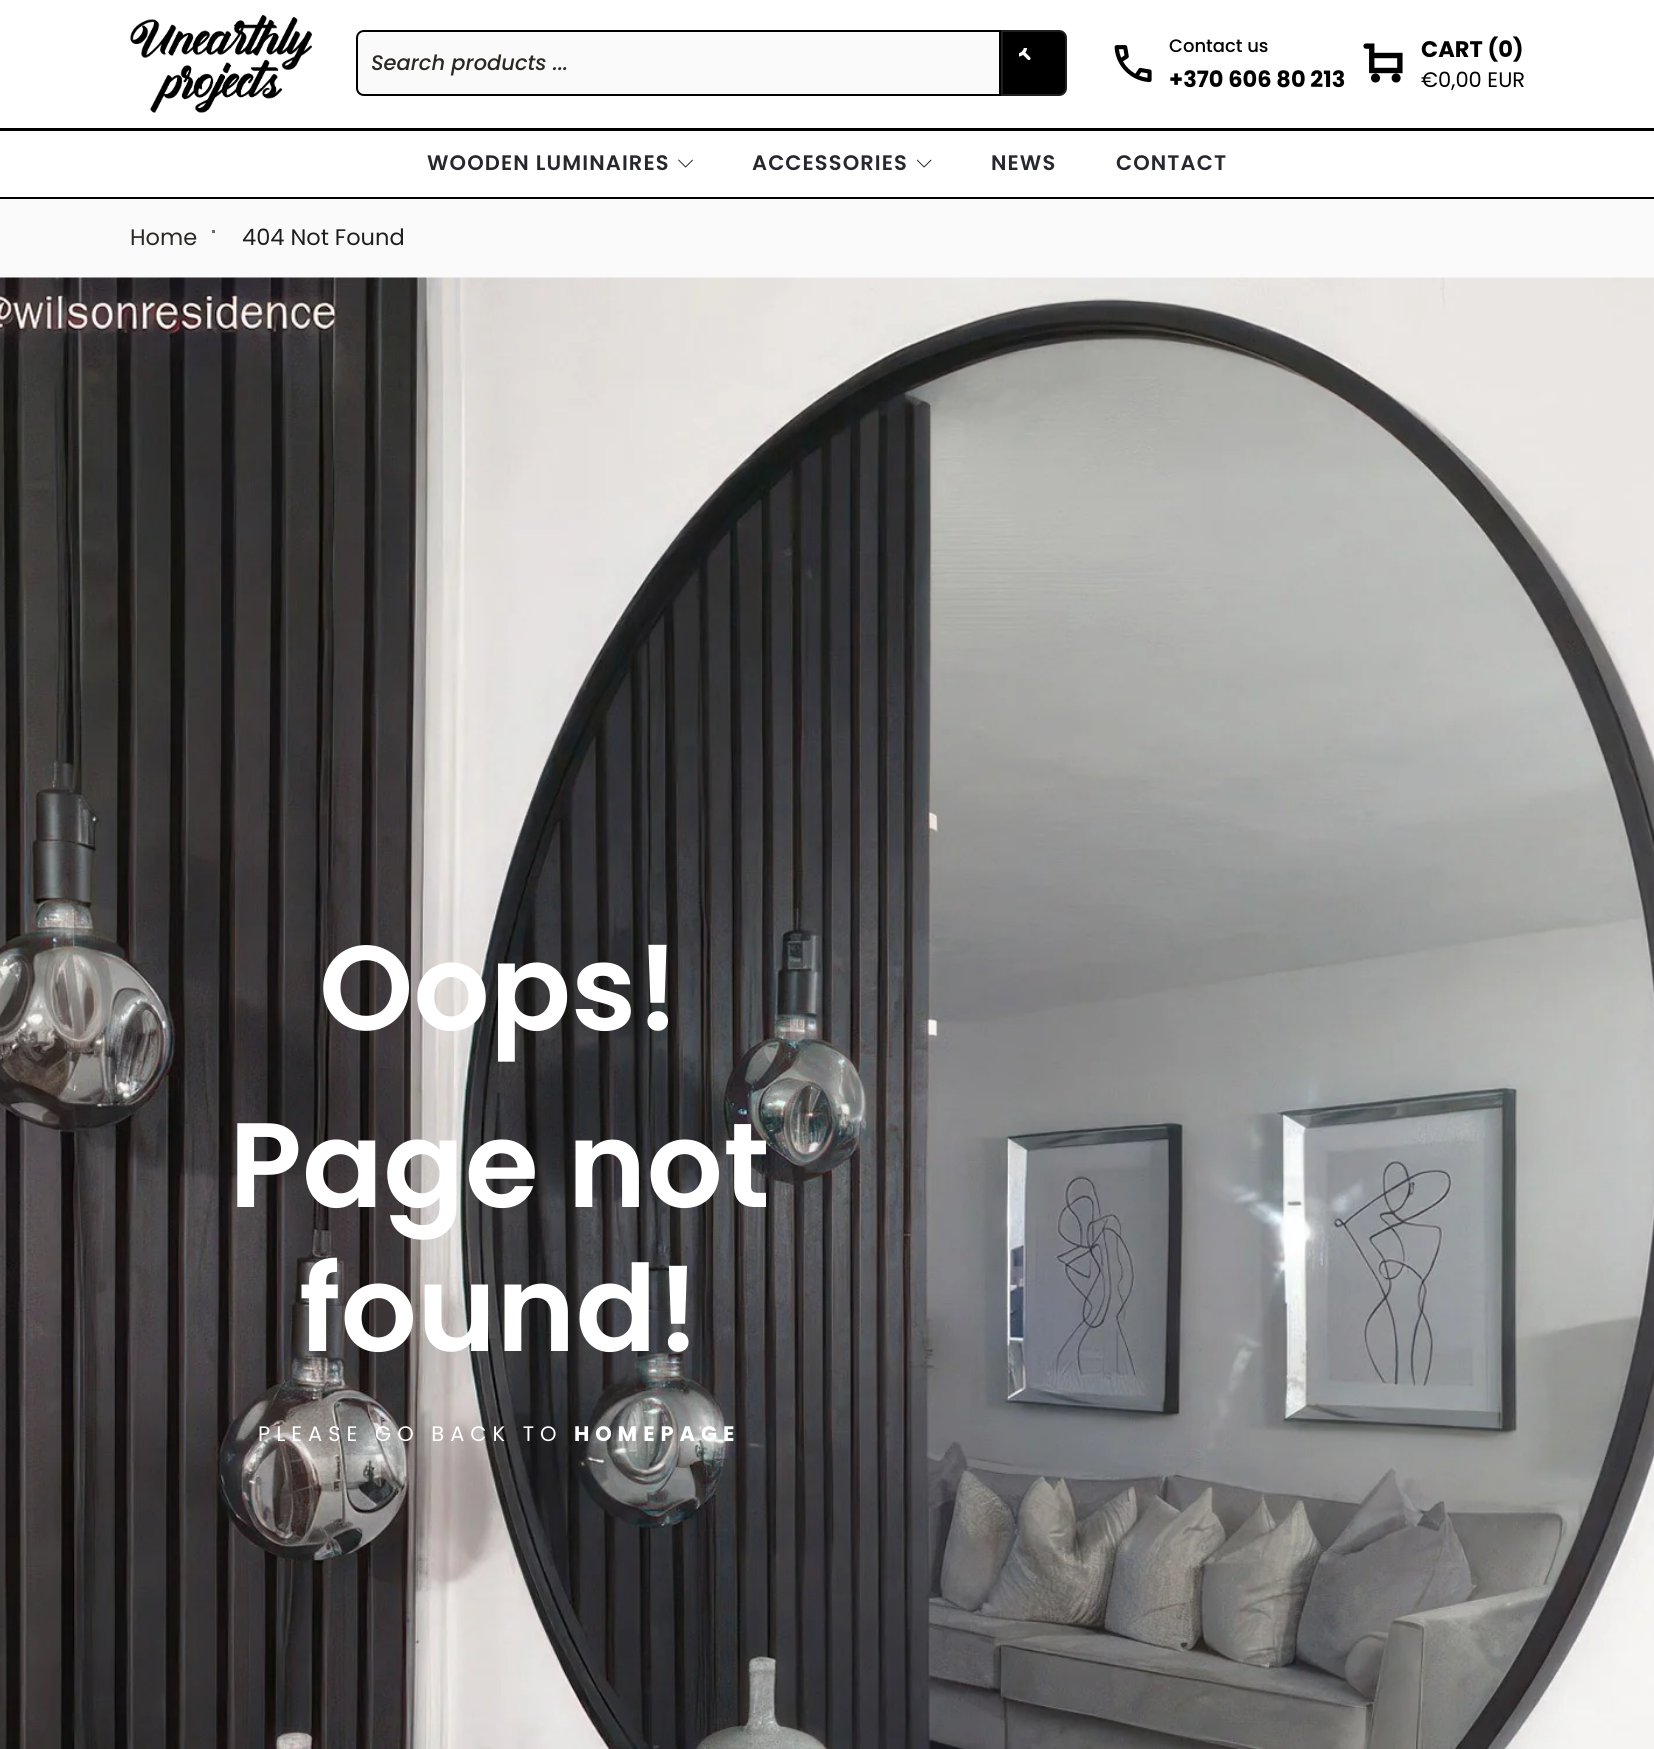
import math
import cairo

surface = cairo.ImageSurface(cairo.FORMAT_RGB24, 1654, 1749)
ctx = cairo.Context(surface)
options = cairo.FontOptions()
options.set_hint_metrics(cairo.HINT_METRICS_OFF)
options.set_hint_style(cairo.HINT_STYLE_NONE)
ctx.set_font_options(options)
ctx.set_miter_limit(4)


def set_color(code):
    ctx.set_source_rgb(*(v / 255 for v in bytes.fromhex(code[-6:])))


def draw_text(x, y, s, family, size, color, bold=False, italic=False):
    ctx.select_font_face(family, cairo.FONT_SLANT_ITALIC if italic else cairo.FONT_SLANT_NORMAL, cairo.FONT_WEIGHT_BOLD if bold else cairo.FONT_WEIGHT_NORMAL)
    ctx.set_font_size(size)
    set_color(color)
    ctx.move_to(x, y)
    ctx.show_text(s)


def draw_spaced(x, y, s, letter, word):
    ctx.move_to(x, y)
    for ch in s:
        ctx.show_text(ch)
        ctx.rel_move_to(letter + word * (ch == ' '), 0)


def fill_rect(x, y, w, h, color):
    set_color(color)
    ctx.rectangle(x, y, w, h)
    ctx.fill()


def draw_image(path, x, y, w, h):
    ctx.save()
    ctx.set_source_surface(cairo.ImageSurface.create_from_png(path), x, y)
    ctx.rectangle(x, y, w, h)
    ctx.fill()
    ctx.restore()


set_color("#fafafa")
ctx.paint()
fill_rect(0, 0, 1654, 128, "#ffffff")
fill_rect(0, 128, 1654, 3, "#000000")
draw_image("assets/img1.png", 130, 15, 182, 98)
set_color("#fafafa")
ctx.new_path()
ctx.move_to(364, 31)
ctx.line_to(1000, 31)
ctx.line_to(1000, 95)
ctx.line_to(364, 95)
ctx.curve_to(360, 95, 357, 92, 357, 88)
ctx.line_to(357, 38)
ctx.curve_to(357, 34, 360, 31, 364, 31)
ctx.close_path()
ctx.fill_preserve()
set_color("#000000")
ctx.stroke()
draw_text(371, 70, "Search products ...", "Poppins Medium", 21, "#2b2723", italic=True)
set_color("#000000")
ctx.new_path()
ctx.move_to(1002, 31)
ctx.line_to(1059, 31)
ctx.curve_to(1063, 31, 1066, 34, 1066, 38)
ctx.line_to(1066, 88)
ctx.curve_to(1066, 92, 1063, 95, 1059, 95)
ctx.line_to(1002, 95)
ctx.close_path()
ctx.fill_preserve()
set_color("#1e1e1e")
ctx.stroke()
draw_image("assets/img2.png", 1019, 48, 12, 13)
draw_image("assets/img3.png", 1114, 45, 38, 38)
draw_text(1169, 52, "Contact us", "Poppins Medium", 18, "#000000")
draw_text(1169, 87, "+370 606 80 213", "Poppins", 22.5, "#000000", bold=True)
draw_image("assets/img4.png", 1363, 43, 40, 40)
draw_text(1421, 57, "CART (0)", "Poppins", 22.5, "#000000", bold=True)
draw_text(1421, 87, "€0,00 EUR", "Poppins", 21, "#000000")
fill_rect(0, 131, 1654, 66, "#ffffff")
fill_rect(0, 197, 1654, 2, "#000000")
ctx.select_font_face("Poppins SemiBold")
set_color("#27272f")
draw_spaced(427, 170, "WOODEN LUMINAIRES", 1.1, 0)
draw_image("assets/img5.png", 678, 159, 15, 9)
draw_spaced(752, 170, "ACCESSORIES", 1.1, 0)
draw_image("assets/img6.png", 917, 159, 15, 9)
draw_spaced(991, 170, "NEWS", 1.1, 0)
draw_spaced(1116, 170, "CONTACT", 1.1, 0)
draw_text(130, 245, "Home", "Poppins", 22.5, "#2b2723")
fill_rect(212, 230, 3, 3, "#6f6d6a")
draw_text(242, 245, "404 Not Found", "Poppins", 22.5, "#1e1e1e")
draw_image("assets/img7.png", 0, 277, 1654, 1472)
draw_text(319, 1030, "Oops!", "Poppins SemiBold", 120, "#ffffff")
draw_text(229, 1207, "Page not", "Poppins SemiBold", 120, "#ffffff")
draw_text(299, 1351, "found!", "Poppins SemiBold", 120, "#ffffff")
ctx.select_font_face("Poppins")
ctx.set_font_size(21)
draw_spaced(258, 1441, "PLEASE GO BACK TO", 6, 0)
ctx.select_font_face("Poppins", cairo.FONT_SLANT_NORMAL, cairo.FONT_WEIGHT_BOLD)
draw_spaced(574, 1441, "HOMEPAGE", 6, 0)
surface.write_to_png("output.png")
